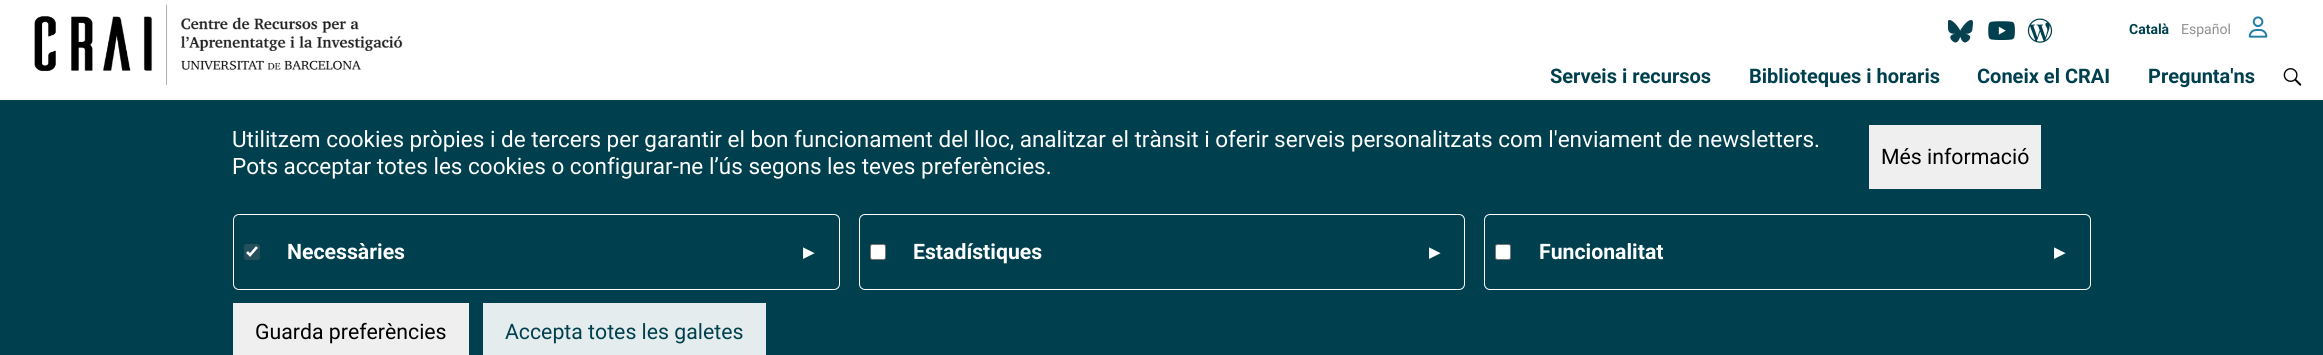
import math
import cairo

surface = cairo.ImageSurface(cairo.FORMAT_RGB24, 2323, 355)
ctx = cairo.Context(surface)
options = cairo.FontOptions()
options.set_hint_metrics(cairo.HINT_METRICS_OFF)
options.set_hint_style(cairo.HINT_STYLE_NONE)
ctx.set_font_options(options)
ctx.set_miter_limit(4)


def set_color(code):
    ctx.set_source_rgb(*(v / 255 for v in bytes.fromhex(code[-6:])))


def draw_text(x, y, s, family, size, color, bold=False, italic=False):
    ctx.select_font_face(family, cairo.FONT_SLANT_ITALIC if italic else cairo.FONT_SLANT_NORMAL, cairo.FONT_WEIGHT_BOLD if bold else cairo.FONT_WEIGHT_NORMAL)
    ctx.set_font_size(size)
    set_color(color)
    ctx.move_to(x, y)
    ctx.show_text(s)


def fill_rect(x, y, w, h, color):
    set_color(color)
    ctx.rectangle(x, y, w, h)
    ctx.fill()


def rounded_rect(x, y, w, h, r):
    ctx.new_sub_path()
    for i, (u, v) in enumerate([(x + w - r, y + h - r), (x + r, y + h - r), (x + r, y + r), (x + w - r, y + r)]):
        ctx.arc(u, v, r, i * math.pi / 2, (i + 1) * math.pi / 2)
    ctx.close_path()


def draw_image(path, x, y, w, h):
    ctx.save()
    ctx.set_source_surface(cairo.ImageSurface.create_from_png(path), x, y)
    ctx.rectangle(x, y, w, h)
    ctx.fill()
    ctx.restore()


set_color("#ffffff")
ctx.paint()
draw_image("assets/img1.png", 34, 4, 369, 82)
draw_image("assets/img2.png", 1948, 20, 25, 23)
draw_image("assets/img3.png", 1988, 21, 27, 19)
draw_image("assets/img4.png", 2027, 18, 26, 25)
draw_text(2129, 34, "Català", "Roboto", 14, "#00404e", bold=True)
draw_text(2181, 34, "Español", "Roboto", 14, "#909090")
draw_image("assets/img5.png", 2248, 16, 20, 22)
draw_text(1550, 83, "Serveis i recursos", "Roboto", 20, "#00404e", bold=True)
draw_text(1749, 83, "Biblioteques i horaris", "Roboto", 20, "#00404e", bold=True)
draw_text(1977, 83, "Coneix el CRAI", "Roboto", 20, "#00404e", bold=True)
draw_text(2148, 83, "Pregunta'ns", "Roboto", 20, "#00404e", bold=True)
draw_image("assets/img6.png", 2283, 68, 19, 18)
fill_rect(0, 100, 2323, 255, "#00404e")
draw_text(232, 147, "Utilitzem cookies pròpies i de tercers per garantir el bon funcionament del lloc, analitzar el trànsit i oferir serveis personalitzats com l'enviament de newsletters.", "Roboto", 22.5, "#ffffff")
draw_text(232, 174, "Pots acceptar totes les cookies o configurar-ne l’ús segons les teves preferències.", "Roboto", 22.5, "#ffffff")
fill_rect(1869, 125, 172, 64, "#efefef")
draw_text(1881, 164, "Més informació", "Roboto", 21.25, "#000000")
rounded_rect(233.5, 214.5, 606, 75, 5.5)
set_color("#ffffff")
ctx.set_line_width(1)
ctx.stroke()
set_color("#23505a")
rounded_rect(244, 244, 16, 16, 2.5)
ctx.fill()
ctx.new_path()
ctx.move_to(247, 252)
ctx.line_to(250, 255)
ctx.line_to(257, 247)
set_color("#ffffff")
ctx.set_line_width(2.6)
ctx.stroke()
draw_text(287, 259, "Necessàries", "Roboto", 21.25, "#ffffff", bold=True)
draw_text(803, 259, "▸", "DejaVu Sans", 21.25, "#ffffff", bold=True)
rounded_rect(859.5, 214.5, 605, 75, 5.5)
ctx.set_line_width(1)
ctx.stroke()
rounded_rect(870.5, 244.5, 15, 15, 2)
ctx.fill_preserve()
set_color("#767676")
ctx.stroke()
draw_text(913, 259, "Estadístiques", "Roboto", 21.25, "#ffffff", bold=True)
draw_text(1429, 259, "▸", "DejaVu Sans", 21.25, "#ffffff", bold=True)
rounded_rect(1484.5, 214.5, 606, 75, 5.5)
ctx.stroke()
rounded_rect(1495.5, 244.5, 15, 15, 2)
ctx.fill_preserve()
set_color("#767676")
ctx.stroke()
draw_text(1539, 259, "Funcionalitat", "Roboto", 21.25, "#ffffff", bold=True)
draw_text(2054, 259, "▸", "DejaVu Sans", 21.25, "#ffffff", bold=True)
fill_rect(233, 303, 236, 52, "#efefef")
draw_text(255, 339, "Guarda preferències", "Roboto", 21.25, "#000000")
fill_rect(483, 303, 283, 52, "#e5eced")
draw_text(505, 339, "Accepta totes les galetes", "Roboto", 21.25, "#00404e")
surface.write_to_png("output.png")
